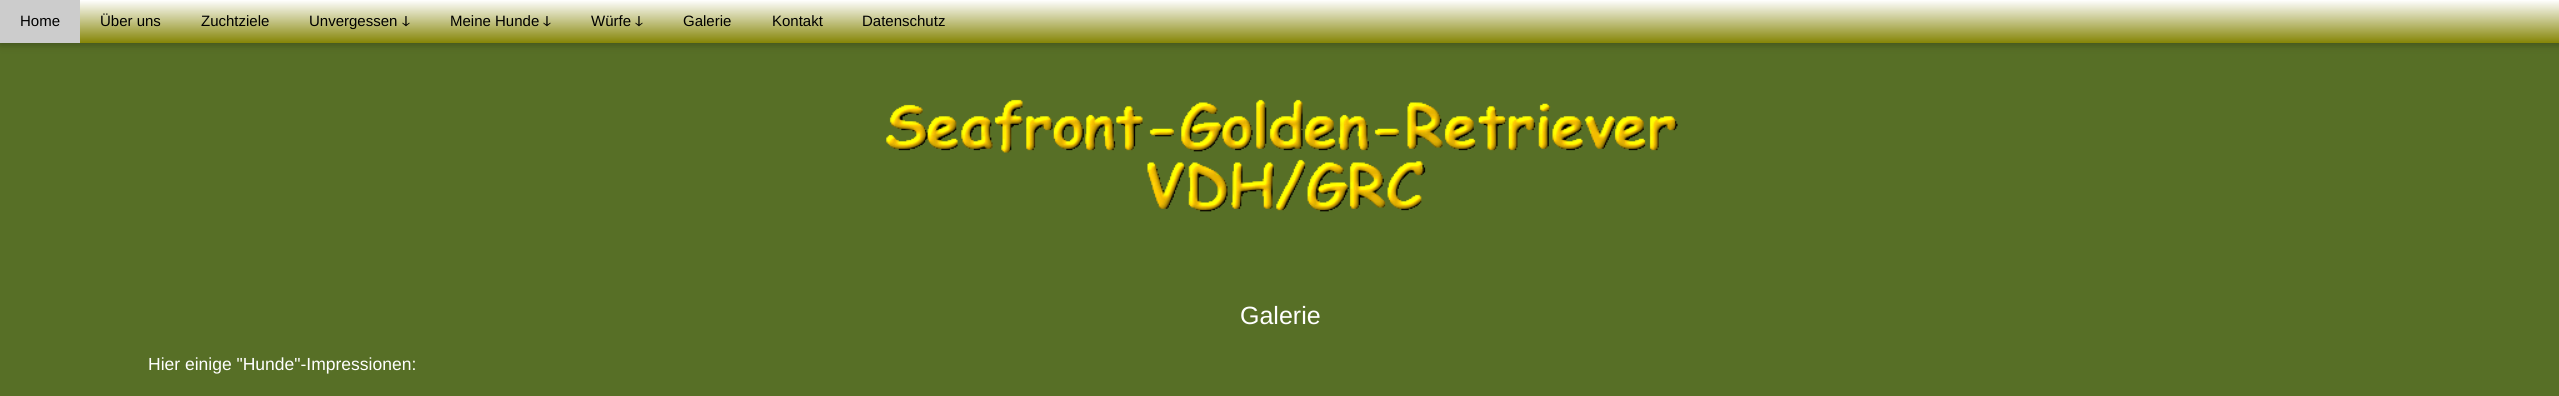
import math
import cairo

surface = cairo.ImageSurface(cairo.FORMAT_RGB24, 2559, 396)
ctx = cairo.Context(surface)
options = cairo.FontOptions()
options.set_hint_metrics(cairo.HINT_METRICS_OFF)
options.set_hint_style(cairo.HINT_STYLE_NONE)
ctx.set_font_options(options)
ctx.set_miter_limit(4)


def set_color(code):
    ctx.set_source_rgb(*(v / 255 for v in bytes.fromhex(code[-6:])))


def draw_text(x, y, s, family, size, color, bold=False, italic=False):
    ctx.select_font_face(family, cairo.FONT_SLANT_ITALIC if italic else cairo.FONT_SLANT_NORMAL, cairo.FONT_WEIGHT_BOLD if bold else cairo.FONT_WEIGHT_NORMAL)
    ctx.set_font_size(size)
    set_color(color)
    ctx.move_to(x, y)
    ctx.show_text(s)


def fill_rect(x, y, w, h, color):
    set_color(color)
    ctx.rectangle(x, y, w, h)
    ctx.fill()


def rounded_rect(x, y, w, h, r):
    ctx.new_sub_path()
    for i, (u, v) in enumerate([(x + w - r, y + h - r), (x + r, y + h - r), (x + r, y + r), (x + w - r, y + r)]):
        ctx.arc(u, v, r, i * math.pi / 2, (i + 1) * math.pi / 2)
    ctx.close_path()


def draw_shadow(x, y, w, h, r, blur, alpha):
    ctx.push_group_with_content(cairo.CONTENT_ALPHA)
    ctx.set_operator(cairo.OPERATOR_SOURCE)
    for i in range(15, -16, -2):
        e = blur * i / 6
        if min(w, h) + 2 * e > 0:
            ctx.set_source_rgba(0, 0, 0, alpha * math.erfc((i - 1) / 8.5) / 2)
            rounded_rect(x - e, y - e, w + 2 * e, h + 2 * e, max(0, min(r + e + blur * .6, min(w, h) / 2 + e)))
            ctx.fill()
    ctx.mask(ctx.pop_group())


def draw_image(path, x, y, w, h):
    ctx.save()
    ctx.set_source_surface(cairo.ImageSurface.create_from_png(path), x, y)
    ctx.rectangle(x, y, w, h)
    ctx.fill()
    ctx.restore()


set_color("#576f26")
ctx.paint()
set_color("#000000")
draw_shadow(0, 3, 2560, 42, 0, 6, 0.12)
draw_shadow(0, 3, 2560, 42, 0, 3, 0.16)
gradient = cairo.LinearGradient(1280, 0, 1280, 43)
gradient.add_color_stop_rgba(0, 1, 1, 1, 1)
gradient.add_color_stop_rgba(1, 0.522, 0.522, 0.024, 1)
ctx.set_source(gradient)
ctx.rectangle(80, 0, 2479, 43)
ctx.fill()
fill_rect(0, 0, 80, 43, "#cccccc")
draw_text(20, 26, "Home", "Liberation Sans", 15, "#000000")
draw_text(100, 26, "Über uns", "Liberation Sans", 15, "#000000")
draw_text(201, 26, "Zuchtziele", "Liberation Sans", 15, "#000000")
draw_text(309, 26, "Unvergessen", "Liberation Sans", 15, "#000000")
draw_text(402, 26, "ↆ", "FreeSerif", 15, "#000000")
draw_text(450, 26, "Meine Hunde", "Liberation Sans", 15, "#000000")
draw_text(543, 26, "ↆ", "FreeSerif", 15, "#000000")
draw_text(591, 26, "Würfe", "Liberation Sans", 15, "#000000")
draw_text(635, 26, "ↆ", "FreeSerif", 15, "#000000")
draw_text(683, 26, "Galerie", "Liberation Sans", 15, "#000000")
draw_text(772, 26, "Kontakt", "Liberation Sans", 15, "#000000")
draw_text(862, 26, "Datenschutz", "Liberation Sans", 15, "#000000")
draw_image("assets/img1.png", 886, 99, 792, 113)
draw_text(1240, 324, "Galerie", "Liberation Sans", 25, "#ffffff")
draw_text(148, 370, "Hier einige \"Hunde\"-Impressionen:", "Liberation Sans", 17.5, "#ffffff")
surface.write_to_png("output.png")
